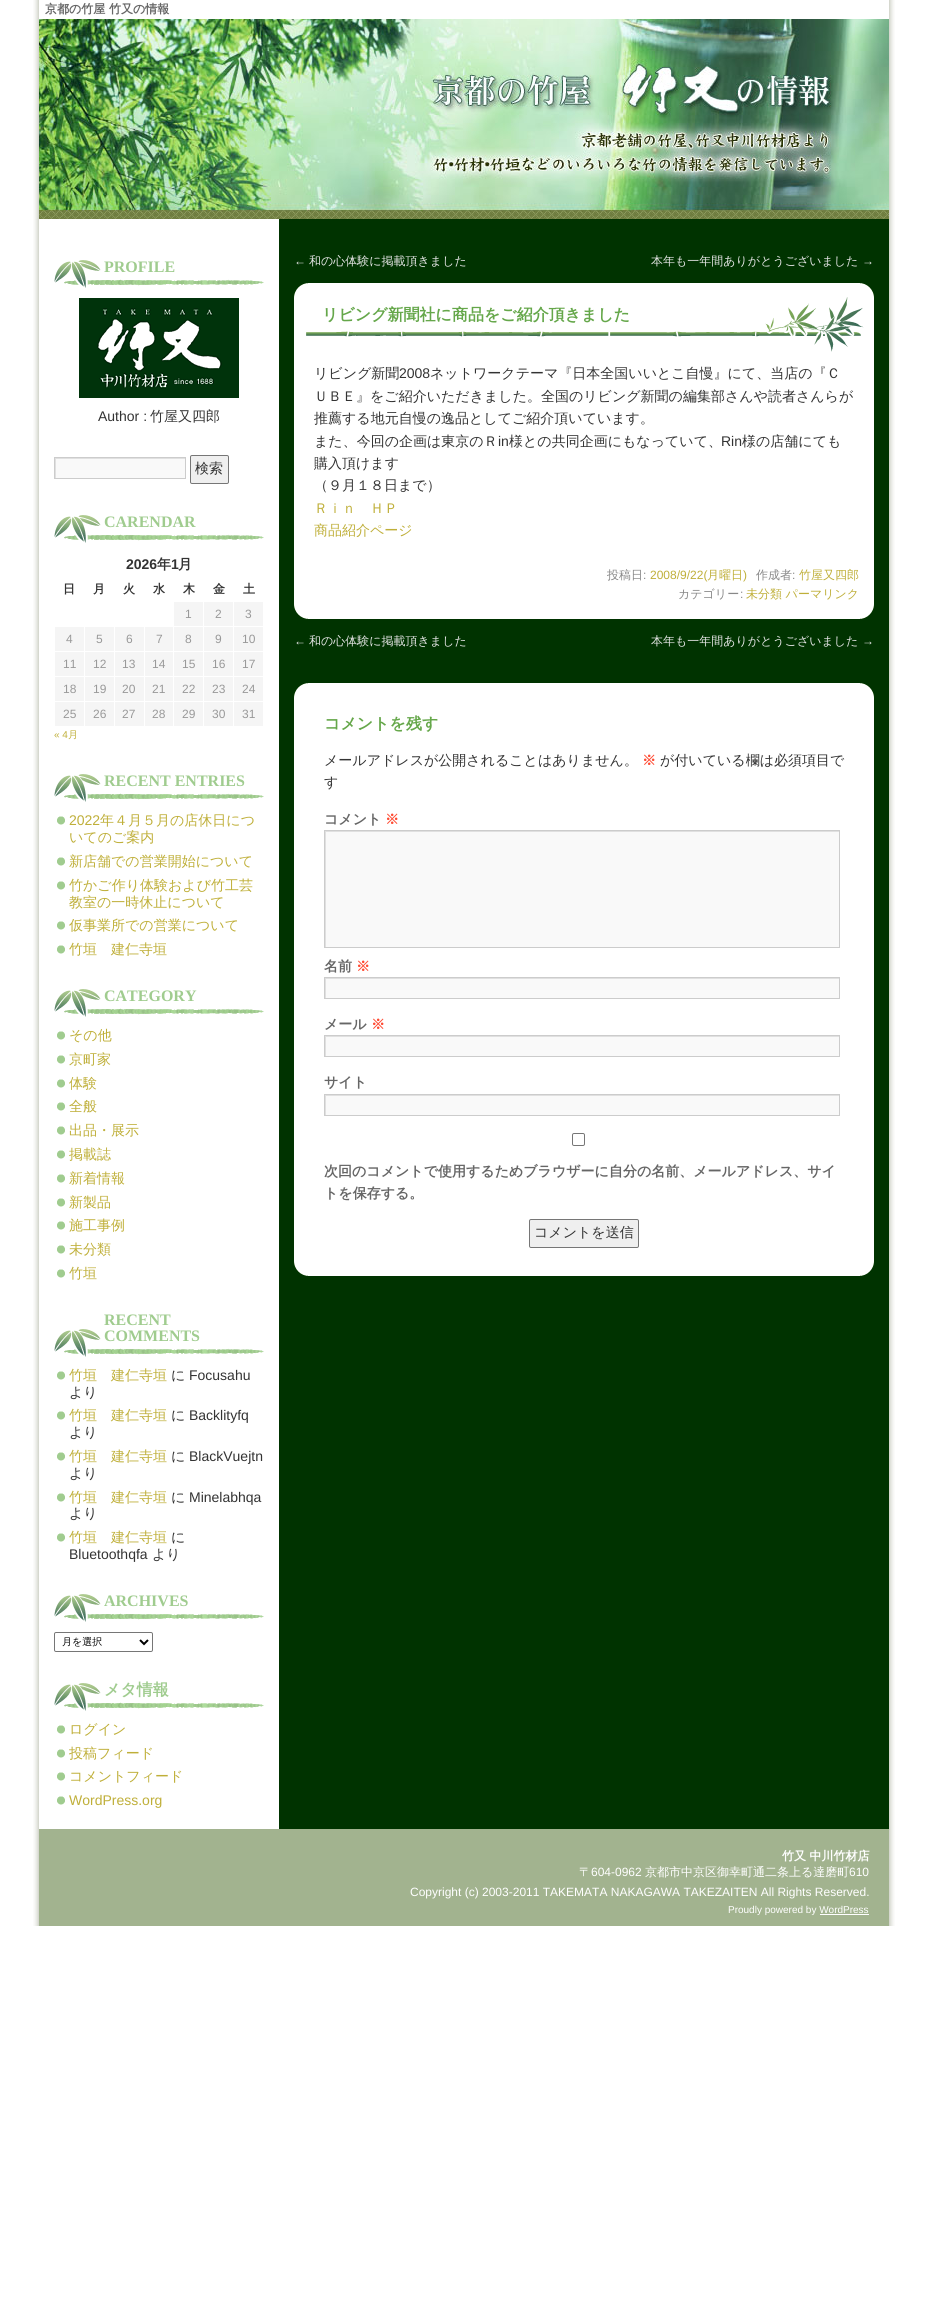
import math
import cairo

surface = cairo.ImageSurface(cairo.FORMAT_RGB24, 928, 2320)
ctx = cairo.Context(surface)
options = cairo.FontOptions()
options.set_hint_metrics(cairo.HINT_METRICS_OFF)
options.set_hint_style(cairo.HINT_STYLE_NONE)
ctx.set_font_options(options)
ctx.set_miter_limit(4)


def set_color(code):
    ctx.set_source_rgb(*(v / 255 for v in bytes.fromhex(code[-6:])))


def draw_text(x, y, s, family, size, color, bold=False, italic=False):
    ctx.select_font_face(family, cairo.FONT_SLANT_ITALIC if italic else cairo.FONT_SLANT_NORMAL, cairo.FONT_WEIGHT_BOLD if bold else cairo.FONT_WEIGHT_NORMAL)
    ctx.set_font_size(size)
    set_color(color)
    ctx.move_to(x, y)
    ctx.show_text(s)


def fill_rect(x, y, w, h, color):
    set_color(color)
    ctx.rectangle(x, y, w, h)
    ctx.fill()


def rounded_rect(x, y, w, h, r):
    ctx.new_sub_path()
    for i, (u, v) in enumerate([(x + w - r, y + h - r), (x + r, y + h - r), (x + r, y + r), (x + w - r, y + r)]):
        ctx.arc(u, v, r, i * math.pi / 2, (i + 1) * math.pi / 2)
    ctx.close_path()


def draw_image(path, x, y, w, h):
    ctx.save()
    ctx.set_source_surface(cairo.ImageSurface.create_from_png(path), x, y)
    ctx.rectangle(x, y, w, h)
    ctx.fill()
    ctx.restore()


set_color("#ffffff")
ctx.paint()
draw_image("assets/img1.png", 33, 0, 862, 1926)
fill_rect(39, 0, 850, 19, "#ffffff")
draw_text(45, 13, "京都の竹屋 竹又の情報", "WenQuanYi Zen Hei", 12, "#666666", bold=True)
draw_image("assets/img2.png", 39, 19, 850, 200)
draw_image("assets/img3.png", 39, 219, 850, 1610)
draw_image("assets/img4.png", 54, 260, 210, 28)
draw_text(104, 272, "PROFILE", "Liberation Serif", 16, "#a0cc8f", bold=True)
draw_image("assets/img5.png", 79, 298, 160, 100)
draw_text(98, 421, "Author :", "Liberation Sans", 14, "#333333")
draw_text(150, 421, "竹屋又四郎", "WenQuanYi Zen Hei Medium", 14, "#333333")
fill_rect(56, 459, 129, 19, "#f9f9f9")
ctx.save()
ctx.rectangle(55, 458, 130, 20)
ctx.clip()
set_color("#e0e0e0")
ctx.set_fill_rule(cairo.FILL_RULE_EVEN_ODD)
ctx.new_path()
ctx.move_to(-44, 359)
ctx.line_to(284, 359)
ctx.line_to(284, 577)
ctx.line_to(-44, 577)
ctx.close_path()
ctx.move_to(56, 459)
ctx.line_to(186, 459)
ctx.line_to(186, 479)
ctx.line_to(56, 479)
ctx.close_path()
ctx.fill()
ctx.restore()
ctx.rectangle(54.5, 457.5, 131, 21)
set_color("#cccccc")
ctx.set_line_width(1)
ctx.stroke()
set_color("#efefef")
rounded_rect(190.5, 455.5, 38, 28, 1.5)
ctx.fill_preserve()
set_color("#767676")
ctx.stroke()
draw_text(195, 473, "検索", "WenQuanYi Zen Hei Medium", 14, "#333333")
draw_image("assets/img4.png", 54, 515, 210, 28)
draw_text(104, 527, "CARENDAR", "Liberation Serif", 16, "#a0cc8f", bold=True)
draw_text(126, 569, "2026", "Liberation Sans", 14, "#333333", bold=True)
draw_text(157, 569, "年", "WenQuanYi Zen Hei", 14, "#333333", bold=True)
draw_text(171, 569, "1", "Liberation Sans", 14, "#333333", bold=True)
draw_text(178, 569, "月", "WenQuanYi Zen Hei", 14, "#333333", bold=True)
draw_text(63, 593, "日", "WenQuanYi Zen Hei", 12, "#333333", bold=True)
draw_text(93, 593, "月", "WenQuanYi Zen Hei", 12, "#333333", bold=True)
draw_text(123, 593, "火", "WenQuanYi Zen Hei", 12, "#333333", bold=True)
draw_text(153, 593, "水", "WenQuanYi Zen Hei", 12, "#333333", bold=True)
draw_text(183, 593, "木", "WenQuanYi Zen Hei", 12, "#333333", bold=True)
draw_text(213, 593, "金", "WenQuanYi Zen Hei", 12, "#333333", bold=True)
draw_text(243, 593, "土", "WenQuanYi Zen Hei", 12, "#333333", bold=True)
fill_rect(174, 602, 29, 24, "#f5f5f5")
draw_text(185, 618, "1", "Liberation Sans", 12, "#999999")
fill_rect(204, 602, 29, 24, "#f5f5f5")
draw_text(215, 618, "2", "Liberation Sans", 12, "#999999")
fill_rect(234, 602, 29, 24, "#f5f5f5")
draw_text(245, 618, "3", "Liberation Sans", 12, "#999999")
fill_rect(55, 627, 29, 24, "#f5f5f5")
draw_text(66, 643, "4", "Liberation Sans", 12, "#999999")
fill_rect(85, 627, 29, 24, "#f5f5f5")
draw_text(96, 643, "5", "Liberation Sans", 12, "#999999")
fill_rect(115, 627, 29, 24, "#f5f5f5")
draw_text(126, 643, "6", "Liberation Sans", 12, "#999999")
fill_rect(145, 627, 28, 24, "#f5f5f5")
draw_text(156, 643, "7", "Liberation Sans", 12, "#999999")
fill_rect(174, 627, 29, 24, "#f5f5f5")
draw_text(185, 643, "8", "Liberation Sans", 12, "#999999")
fill_rect(204, 627, 29, 24, "#f5f5f5")
draw_text(215, 643, "9", "Liberation Sans", 12, "#999999")
fill_rect(234, 627, 29, 24, "#f5f5f5")
draw_text(242, 643, "10", "Liberation Sans", 12, "#999999")
fill_rect(55, 652, 29, 24, "#f5f5f5")
draw_text(63, 668, "11", "Liberation Sans", 12, "#999999")
fill_rect(85, 652, 29, 24, "#f5f5f5")
draw_text(93, 668, "12", "Liberation Sans", 12, "#999999")
fill_rect(115, 652, 29, 24, "#f5f5f5")
draw_text(122, 668, "13", "Liberation Sans", 12, "#999999")
fill_rect(145, 652, 28, 24, "#f5f5f5")
draw_text(152, 668, "14", "Liberation Sans", 12, "#999999")
fill_rect(174, 652, 29, 24, "#f5f5f5")
draw_text(182, 668, "15", "Liberation Sans", 12, "#999999")
fill_rect(204, 652, 29, 24, "#f5f5f5")
draw_text(212, 668, "16", "Liberation Sans", 12, "#999999")
fill_rect(234, 652, 29, 24, "#f5f5f5")
draw_text(242, 668, "17", "Liberation Sans", 12, "#999999")
fill_rect(55, 677, 29, 24, "#f5f5f5")
draw_text(63, 693, "18", "Liberation Sans", 12, "#999999")
fill_rect(85, 677, 29, 24, "#f5f5f5")
draw_text(93, 693, "19", "Liberation Sans", 12, "#999999")
fill_rect(115, 677, 29, 24, "#f5f5f5")
draw_text(122, 693, "20", "Liberation Sans", 12, "#999999")
fill_rect(145, 677, 28, 24, "#f5f5f5")
draw_text(152, 693, "21", "Liberation Sans", 12, "#999999")
fill_rect(174, 677, 29, 24, "#f5f5f5")
draw_text(182, 693, "22", "Liberation Sans", 12, "#999999")
fill_rect(204, 677, 29, 24, "#f5f5f5")
draw_text(212, 693, "23", "Liberation Sans", 12, "#999999")
fill_rect(234, 677, 29, 24, "#f5f5f5")
draw_text(242, 693, "24", "Liberation Sans", 12, "#999999")
fill_rect(55, 702, 29, 24, "#f5f5f5")
draw_text(63, 718, "25", "Liberation Sans", 12, "#999999")
fill_rect(85, 702, 29, 24, "#f5f5f5")
draw_text(93, 718, "26", "Liberation Sans", 12, "#999999")
fill_rect(115, 702, 29, 24, "#f5f5f5")
draw_text(122, 718, "27", "Liberation Sans", 12, "#999999")
fill_rect(145, 702, 28, 24, "#f5f5f5")
draw_text(152, 718, "28", "Liberation Sans", 12, "#999999")
fill_rect(174, 702, 29, 24, "#f5f5f5")
draw_text(182, 718, "29", "Liberation Sans", 12, "#999999")
fill_rect(204, 702, 29, 24, "#f5f5f5")
draw_text(212, 718, "30", "Liberation Sans", 12, "#999999")
fill_rect(234, 702, 29, 24, "#f5f5f5")
draw_text(242, 718, "31", "Liberation Sans", 12, "#999999")
draw_text(54, 738, "« 4", "Liberation Sans", 10, "#bfaf39")
draw_text(68, 738, "月", "WenQuanYi Zen Hei Medium", 10, "#bfaf39")
draw_image("assets/img4.png", 54, 774, 210, 28)
draw_text(104, 786, "RECENT ENTRIES", "Liberation Serif", 16, "#a0cc8f", bold=True)
draw_image("assets/img6.png", 57, 816, 8, 9)
draw_text(69, 825, "2022", "Liberation Sans", 14, "#bfaf39")
draw_text(100, 825, "年４月５月の店休日につ", "WenQuanYi Zen Hei Medium", 14, "#bfaf39")
draw_text(69, 842, "いてのご案内", "WenQuanYi Zen Hei Medium", 14, "#bfaf39")
draw_image("assets/img6.png", 57, 857, 8, 9)
draw_text(69, 866, "新店舗での営業開始について", "WenQuanYi Zen Hei Medium", 14, "#bfaf39")
draw_image("assets/img6.png", 57, 881, 8, 9)
draw_text(69, 890, "竹かご作り体験および竹工芸", "WenQuanYi Zen Hei Medium", 14, "#bfaf39")
draw_text(69, 907, "教室の一時休止について", "WenQuanYi Zen Hei Medium", 14, "#bfaf39")
draw_image("assets/img6.png", 57, 921, 8, 9)
draw_text(69, 930, "仮事業所での営業について", "WenQuanYi Zen Hei Medium", 14, "#bfaf39")
draw_image("assets/img6.png", 57, 945, 8, 9)
draw_text(69, 954, "竹垣　建仁寺垣", "WenQuanYi Zen Hei Medium", 14, "#bfaf39")
draw_image("assets/img4.png", 54, 989, 210, 28)
draw_text(104, 1001, "CATEGORY", "Liberation Serif", 16, "#a0cc8f", bold=True)
draw_image("assets/img6.png", 57, 1031, 8, 9)
draw_text(69, 1040, "その他", "WenQuanYi Zen Hei Medium", 14, "#bfaf39")
draw_image("assets/img6.png", 57, 1055, 8, 9)
draw_text(69, 1064, "京町家", "WenQuanYi Zen Hei Medium", 14, "#bfaf39")
draw_image("assets/img6.png", 57, 1079, 8, 9)
draw_text(69, 1088, "体験", "WenQuanYi Zen Hei Medium", 14, "#bfaf39")
draw_image("assets/img6.png", 57, 1102, 8, 9)
draw_text(69, 1111, "全般", "WenQuanYi Zen Hei Medium", 14, "#bfaf39")
draw_image("assets/img6.png", 57, 1126, 8, 9)
draw_text(69, 1135, "出品・展示", "WenQuanYi Zen Hei Medium", 14, "#bfaf39")
draw_image("assets/img6.png", 57, 1150, 8, 9)
draw_text(69, 1159, "掲載誌", "WenQuanYi Zen Hei Medium", 14, "#bfaf39")
draw_image("assets/img6.png", 57, 1174, 8, 9)
draw_text(69, 1183, "新着情報", "WenQuanYi Zen Hei Medium", 14, "#bfaf39")
draw_image("assets/img6.png", 57, 1198, 8, 9)
draw_text(69, 1207, "新製品", "WenQuanYi Zen Hei Medium", 14, "#bfaf39")
draw_image("assets/img6.png", 57, 1221, 8, 9)
draw_text(69, 1230, "施工事例", "WenQuanYi Zen Hei Medium", 14, "#bfaf39")
draw_image("assets/img6.png", 57, 1245, 8, 9)
draw_text(69, 1254, "未分類", "WenQuanYi Zen Hei Medium", 14, "#bfaf39")
draw_image("assets/img6.png", 57, 1269, 8, 9)
draw_text(69, 1278, "竹垣", "WenQuanYi Zen Hei Medium", 14, "#bfaf39")
draw_image("assets/img4.png", 54, 1329, 210, 28)
draw_text(104, 1325, "RECENT", "Liberation Serif", 16, "#a0cc8f", bold=True)
draw_text(104, 1341, "COMMENTS", "Liberation Serif", 16, "#a0cc8f", bold=True)
draw_image("assets/img6.png", 57, 1371, 8, 9)
draw_text(69, 1380, "竹垣　建仁寺垣", "WenQuanYi Zen Hei Medium", 14, "#bfaf39")
draw_text(171, 1380, "に", "WenQuanYi Zen Hei Medium", 14, "#333333")
draw_text(189, 1380, "Focusahu", "Liberation Sans", 14, "#333333")
draw_text(69, 1397, "より", "WenQuanYi Zen Hei Medium", 14, "#333333")
draw_image("assets/img6.png", 57, 1411, 8, 9)
draw_text(69, 1420, "竹垣　建仁寺垣", "WenQuanYi Zen Hei Medium", 14, "#bfaf39")
draw_text(171, 1420, "に", "WenQuanYi Zen Hei Medium", 14, "#333333")
draw_text(189, 1420, "Backlityfq", "Liberation Sans", 14, "#333333")
draw_text(69, 1437, "より", "WenQuanYi Zen Hei Medium", 14, "#333333")
draw_image("assets/img6.png", 57, 1452, 8, 9)
draw_text(69, 1461, "竹垣　建仁寺垣", "WenQuanYi Zen Hei Medium", 14, "#bfaf39")
draw_text(171, 1461, "に", "WenQuanYi Zen Hei Medium", 14, "#333333")
draw_text(189, 1461, "BlackVuejtn", "Liberation Sans", 14, "#333333")
draw_text(69, 1478, "より", "WenQuanYi Zen Hei Medium", 14, "#333333")
draw_image("assets/img6.png", 57, 1493, 8, 9)
draw_text(69, 1502, "竹垣　建仁寺垣", "WenQuanYi Zen Hei Medium", 14, "#bfaf39")
draw_text(171, 1502, "に", "WenQuanYi Zen Hei Medium", 14, "#333333")
draw_text(189, 1502, "Minelabhqa", "Liberation Sans", 14, "#333333")
draw_text(69, 1518, "より", "WenQuanYi Zen Hei Medium", 14, "#333333")
draw_image("assets/img6.png", 57, 1533, 8, 9)
draw_text(69, 1542, "竹垣　建仁寺垣", "WenQuanYi Zen Hei Medium", 14, "#bfaf39")
draw_text(171, 1542, "に", "WenQuanYi Zen Hei Medium", 14, "#333333")
draw_text(69, 1559, "Bluetoothqfa", "Liberation Sans", 14, "#333333")
draw_text(152, 1559, "より", "WenQuanYi Zen Hei Medium", 14, "#333333")
draw_image("assets/img4.png", 54, 1594, 210, 28)
draw_text(104, 1606, "ARCHIVES", "Liberation Serif", 16, "#a0cc8f", bold=True)
rounded_rect(54.5, 1632.5, 98, 19, 1.5)
set_color("#767676")
ctx.stroke()
ctx.new_path()
ctx.move_to(140, 1640)
ctx.line_to(144, 1644)
ctx.line_to(148, 1640)
set_color("#000000")
ctx.set_line_width(2)
ctx.stroke()
draw_text(62, 1645, "月を選択", "WenQuanYi Zen Hei Medium", 10, "#000000")
draw_image("assets/img4.png", 54, 1683, 210, 28)
draw_text(104, 1695, "メタ情報", "WenQuanYi Zen Hei", 16, "#a0cc8f", bold=True)
draw_image("assets/img6.png", 57, 1725, 8, 9)
draw_text(69, 1734, "ログイン", "WenQuanYi Zen Hei Medium", 14, "#bfaf39")
draw_image("assets/img6.png", 57, 1749, 8, 9)
draw_text(69, 1758, "投稿フィード", "WenQuanYi Zen Hei Medium", 14, "#bfaf39")
draw_image("assets/img6.png", 57, 1772, 8, 9)
draw_text(69, 1781, "コメントフィード", "WenQuanYi Zen Hei Medium", 14, "#bfaf39")
draw_image("assets/img6.png", 57, 1796, 8, 9)
draw_text(69, 1805, "WordPress.org", "Liberation Sans", 14, "#bfaf39")
draw_text(294, 265, "←", "Liberation Sans", 12, "#e5e5e5")
draw_text(309, 265, "和の心体験に掲載頂きました", "WenQuanYi Zen Hei Medium", 12, "#e5e5e5")
draw_text(651, 265, "本年も一年間ありがとうございました", "WenQuanYi Zen Hei Medium", 12, "#e5e5e5")
draw_text(862, 265, "→", "Liberation Sans", 12, "#e5e5e5")
fill_rect(294, 298, 580, 306, "#ffffff")
draw_image("assets/img7.png", 294, 283, 580, 15)
draw_image("assets/img8.png", 306, 297, 558, 55)
draw_text(322, 320, "リビング新聞社に商品をご紹介頂きました", "WenQuanYi Zen Hei", 16, "#65a74a", bold=True)
draw_text(314, 378, "リビング新聞", "WenQuanYi Zen Hei Medium", 14, "#333333")
draw_text(399, 378, "2008", "Liberation Sans", 14, "#333333")
draw_text(430, 378, "ネットワークテーマ『日本全国いいとこ自慢』にて、当店の『Ｃ", "WenQuanYi Zen Hei Medium", 14, "#333333")
draw_text(314, 401, "ＵＢＥ』をご紹介いただきました。全国のリビング新聞の編集部さんや読者さんらが", "WenQuanYi Zen Hei Medium", 14, "#333333")
draw_text(314, 423, "推薦する地元自慢の逸品としてご紹介頂いています。", "WenQuanYi Zen Hei Medium", 14, "#333333")
draw_text(314, 446, "また、今回の企画は東京のＲ", "WenQuanYi Zen Hei Medium", 14, "#333333")
draw_text(498, 446, "in", "Liberation Sans", 14, "#333333")
draw_text(509, 446, "様との共同企画にもなっていて、", "WenQuanYi Zen Hei Medium", 14, "#333333")
draw_text(721, 446, "Rin", "Liberation Sans", 14, "#333333")
draw_text(742, 446, "様の店舗にても", "WenQuanYi Zen Hei Medium", 14, "#333333")
draw_text(314, 468, "購入頂けます", "WenQuanYi Zen Hei Medium", 14, "#333333")
draw_text(314, 490, "（９月１８日まで）", "WenQuanYi Zen Hei Medium", 14, "#333333")
draw_text(314, 513, "Ｒｉｎ　ＨＰ", "WenQuanYi Zen Hei Medium", 14, "#bfaf39")
draw_text(314, 535, "商品紹介ページ", "WenQuanYi Zen Hei Medium", 14, "#bfaf39")
draw_text(607, 579, "投稿日", "WenQuanYi Zen Hei Medium", 12, "#888888")
draw_text(643, 579, ":", "Liberation Sans", 12, "#888888")
draw_text(650, 579, "2008/9/22(", "Liberation Sans", 12, "#bfaf39")
draw_text(707, 579, "月曜日", "WenQuanYi Zen Hei Medium", 12, "#bfaf39")
draw_text(743, 579, ")", "Liberation Sans", 12, "#bfaf39")
draw_text(756, 579, "作成者", "WenQuanYi Zen Hei Medium", 12, "#888888")
draw_text(792, 579, ":", "Liberation Sans", 12, "#888888")
draw_text(799, 579, "竹屋又四郎", "WenQuanYi Zen Hei Medium", 12, "#bfaf39")
draw_image("assets/img9.png", 294, 604, 580, 15)
draw_text(678, 598, "カテゴリー", "WenQuanYi Zen Hei Medium", 12, "#888888")
draw_text(740, 598, ":", "Liberation Sans", 12, "#888888")
draw_text(746, 598, "未分類 パーマリンク", "WenQuanYi Zen Hei Medium", 12, "#bfaf39")
draw_text(294, 645, "←", "Liberation Sans", 12, "#e5e5e5")
draw_text(309, 645, "和の心体験に掲載頂きました", "WenQuanYi Zen Hei Medium", 12, "#e5e5e5")
draw_text(651, 645, "本年も一年間ありがとうございました", "WenQuanYi Zen Hei Medium", 12, "#e5e5e5")
draw_text(862, 645, "→", "Liberation Sans", 12, "#e5e5e5")
fill_rect(294, 698, 580, 563, "#ffffff")
draw_image("assets/img7.png", 294, 683, 580, 15)
draw_image("assets/img9.png", 294, 1261, 580, 15)
draw_text(324, 729, "コメントを残す", "WenQuanYi Zen Hei", 16, "#65a74a", bold=True)
draw_text(324, 765, "メールアドレスが公開されることはありません。", "WenQuanYi Zen Hei Medium", 14, "#333333")
draw_text(642, 765, "※", "WenQuanYi Zen Hei", 14, "#ff4b33", bold=True)
draw_text(660, 765, "が付いている欄は必須項目で", "WenQuanYi Zen Hei Medium", 14, "#333333")
draw_text(324, 787, "す", "WenQuanYi Zen Hei Medium", 14, "#333333")
draw_text(324, 824, "コメント", "WenQuanYi Zen Hei", 14, "#666666", bold=True)
draw_text(385, 824, "※", "WenQuanYi Zen Hei", 14, "#ff4b33", bold=True)
fill_rect(326, 832, 513, 115, "#f9f9f9")
ctx.save()
ctx.rectangle(325, 831, 514, 116)
ctx.clip()
set_color("#e0e0e0")
ctx.set_fill_rule(cairo.FILL_RULE_EVEN_ODD)
ctx.new_path()
ctx.move_to(226, 732)
ctx.line_to(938, 732)
ctx.line_to(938, 1046)
ctx.line_to(226, 1046)
ctx.close_path()
ctx.move_to(326, 832)
ctx.line_to(840, 832)
ctx.line_to(840, 948)
ctx.line_to(326, 948)
ctx.close_path()
ctx.fill()
ctx.restore()
ctx.rectangle(324.5, 830.5, 515, 117)
set_color("#cccccc")
ctx.set_line_width(1)
ctx.stroke()
draw_text(324, 971, "名前", "WenQuanYi Zen Hei", 14, "#666666", bold=True)
draw_text(356, 971, "※", "WenQuanYi Zen Hei", 14, "#ff4b33", bold=True)
fill_rect(326, 979, 513, 19, "#f9f9f9")
ctx.save()
ctx.rectangle(325, 978, 514, 20)
ctx.clip()
set_color("#e0e0e0")
ctx.set_fill_rule(cairo.FILL_RULE_EVEN_ODD)
ctx.new_path()
ctx.move_to(226, 879)
ctx.line_to(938, 879)
ctx.line_to(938, 1097)
ctx.line_to(226, 1097)
ctx.close_path()
ctx.move_to(326, 979)
ctx.line_to(840, 979)
ctx.line_to(840, 999)
ctx.line_to(326, 999)
ctx.close_path()
ctx.fill()
ctx.restore()
ctx.rectangle(324.5, 977.5, 515, 21)
set_color("#cccccc")
ctx.stroke()
draw_text(324, 1029, "メール", "WenQuanYi Zen Hei", 14, "#666666", bold=True)
draw_text(371, 1029, "※", "WenQuanYi Zen Hei", 14, "#ff4b33", bold=True)
fill_rect(326, 1037, 513, 19, "#f9f9f9")
ctx.save()
ctx.rectangle(325, 1036, 514, 20)
ctx.clip()
set_color("#e0e0e0")
ctx.set_fill_rule(cairo.FILL_RULE_EVEN_ODD)
ctx.new_path()
ctx.move_to(226, 937)
ctx.line_to(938, 937)
ctx.line_to(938, 1155)
ctx.line_to(226, 1155)
ctx.close_path()
ctx.move_to(326, 1037)
ctx.line_to(840, 1037)
ctx.line_to(840, 1057)
ctx.line_to(326, 1057)
ctx.close_path()
ctx.fill()
ctx.restore()
ctx.rectangle(324.5, 1035.5, 515, 21)
set_color("#cccccc")
ctx.stroke()
draw_text(324, 1087, "サイト", "WenQuanYi Zen Hei", 14, "#666666", bold=True)
fill_rect(326, 1096, 513, 19, "#f9f9f9")
ctx.save()
ctx.rectangle(325, 1095, 514, 20)
ctx.clip()
set_color("#e0e0e0")
ctx.set_fill_rule(cairo.FILL_RULE_EVEN_ODD)
ctx.new_path()
ctx.move_to(226, 996)
ctx.line_to(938, 996)
ctx.line_to(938, 1214)
ctx.line_to(226, 1214)
ctx.close_path()
ctx.move_to(326, 1096)
ctx.line_to(840, 1096)
ctx.line_to(840, 1116)
ctx.line_to(326, 1116)
ctx.close_path()
ctx.fill()
ctx.restore()
ctx.rectangle(324.5, 1094.5, 515, 21)
set_color("#cccccc")
ctx.stroke()
rounded_rect(572.5, 1133.5, 12, 12, 1.5)
set_color("#767676")
ctx.stroke()
draw_text(324, 1176, "次回のコメントで使用するためブラウザーに自分の名前、メールアドレス、サイ", "WenQuanYi Zen Hei", 14, "#666666", bold=True)
draw_text(324, 1198, "トを保存する。", "WenQuanYi Zen Hei", 14, "#666666", bold=True)
set_color("#efefef")
rounded_rect(529.5, 1219.5, 109, 28, 1.5)
ctx.fill_preserve()
set_color("#767676")
ctx.stroke()
draw_text(534, 1237, "コメントを送信", "WenQuanYi Zen Hei Medium", 14, "#333333")
draw_text(782, 1860, "竹又 中川竹材店", "WenQuanYi Zen Hei", 12, "#ffffff", bold=True)
draw_text(579, 1876, "〒", "WenQuanYi Zen Hei Medium", 12, "#ffffff")
draw_text(591, 1876, "604-0962", "Liberation Sans", 12, "#ffffff")
draw_text(645, 1876, "京都市中京区御幸町通二条上る達磨町", "WenQuanYi Zen Hei Medium", 12, "#ffffff")
draw_text(849, 1876, "610", "Liberation Sans", 12, "#ffffff")
draw_text(410, 1896, "Copyright (c) 2003-2011 TAKEMATA NAKAGAWA TAKEZAITEN All Rights Reserved.", "Liberation Sans", 12, "#ffffff")
draw_text(728, 1913, "Proudly powered by WordPress", "Liberation Sans", 10, "#ffffff")
fill_rect(820, 1914, 49, 1, "#ffffff")
surface.write_to_png("output.png")
